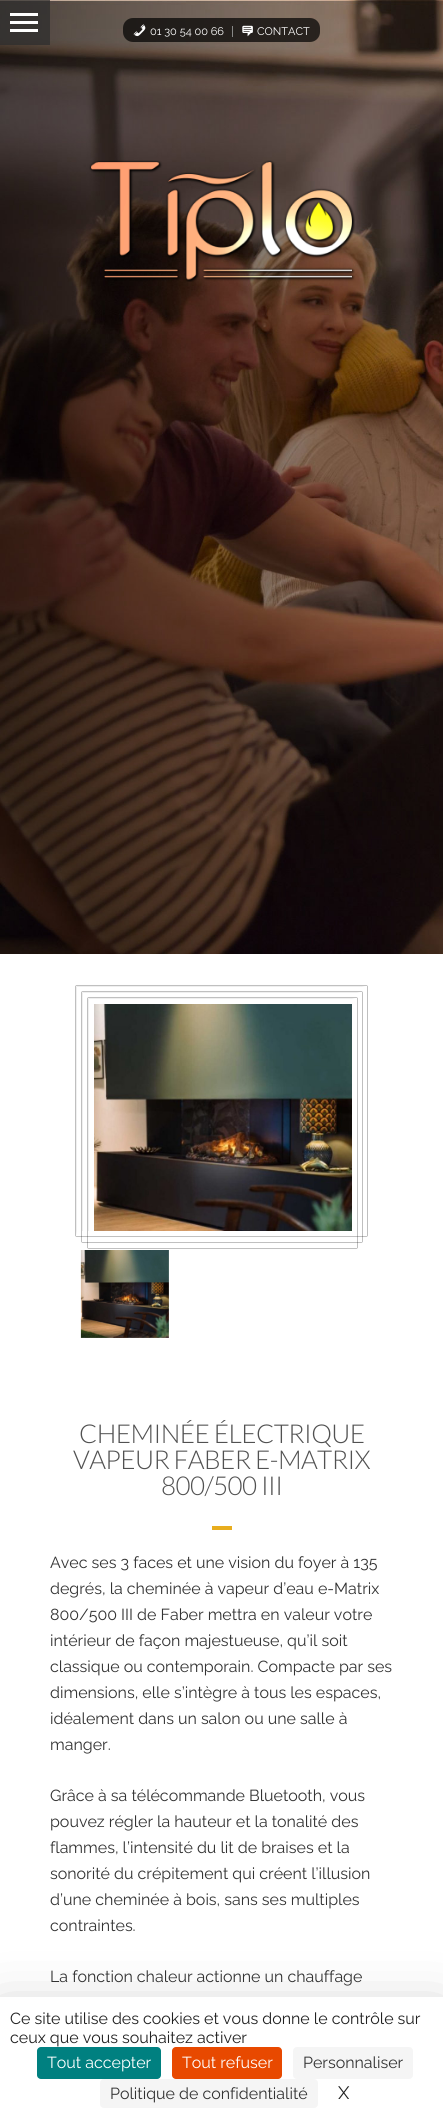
import math
import cairo

surface = cairo.ImageSurface(cairo.FORMAT_RGB24, 443, 2121)
ctx = cairo.Context(surface)
options = cairo.FontOptions()
options.set_hint_metrics(cairo.HINT_METRICS_OFF)
options.set_hint_style(cairo.HINT_STYLE_NONE)
ctx.set_font_options(options)
ctx.set_miter_limit(4)


def set_color(code):
    ctx.set_source_rgb(*(v / 255 for v in bytes.fromhex(code[-6:])))


def draw_text(x, y, s, family, size, color, bold=False, italic=False):
    ctx.select_font_face(family, cairo.FONT_SLANT_ITALIC if italic else cairo.FONT_SLANT_NORMAL, cairo.FONT_WEIGHT_BOLD if bold else cairo.FONT_WEIGHT_NORMAL)
    ctx.set_font_size(size)
    set_color(color)
    ctx.move_to(x, y)
    ctx.show_text(s)


def draw_spaced(x, y, s, letter, word):
    ctx.move_to(x, y)
    for ch in s:
        ctx.show_text(ch)
        ctx.rel_move_to(letter + word * (ch == ' '), 0)


def fill_rect(x, y, w, h, color):
    set_color(color)
    ctx.rectangle(x, y, w, h)
    ctx.fill()


def rounded_rect(x, y, w, h, r):
    ctx.new_sub_path()
    for i, (u, v) in enumerate([(x + w - r, y + h - r), (x + r, y + h - r), (x + r, y + r), (x + w - r, y + r)]):
        ctx.arc(u, v, r, i * math.pi / 2, (i + 1) * math.pi / 2)
    ctx.close_path()


def draw_shadow(x, y, w, h, r, blur, alpha):
    ctx.push_group_with_content(cairo.CONTENT_ALPHA)
    ctx.set_operator(cairo.OPERATOR_SOURCE)
    for i in range(15, -16, -2):
        e = blur * i / 6
        if min(w, h) + 2 * e > 0:
            ctx.set_source_rgba(0, 0, 0, alpha * math.erfc((i - 1) / 8.5) / 2)
            rounded_rect(x - e, y - e, w + 2 * e, h + 2 * e, max(0, min(r + e + blur * .6, min(w, h) / 2 + e)))
            ctx.fill()
    ctx.mask(ctx.pop_group())


def draw_image(path, x, y, w, h):
    ctx.save()
    ctx.set_source_surface(cairo.ImageSurface.create_from_png(path), x, y)
    ctx.rectangle(x, y, w, h)
    ctx.fill()
    ctx.restore()


set_color("#ffffff")
ctx.paint()
draw_image("assets/img1.png", 0, 0, 443, 954)
ctx.set_source_rgba(0.176, 0.176, 0.176, 0.72)
ctx.rectangle(0, 0, 50, 45)
ctx.fill()
fill_rect(10, 13, 28, 3, "#ffffff")
fill_rect(10, 21, 28, 3, "#ffffff")
fill_rect(10, 29, 28, 3, "#ffffff")
ctx.set_source_rgba(0, 0, 0, 0.7)
rounded_rect(123, 18, 197, 24, 10)
ctx.fill()
fill_rect(232, 26, 1, 11, "#888888")
draw_image("assets/img2.png", 133, 24, 13, 13)
draw_text(150, 35, "01 30 54 00 66", "Raleway", 11, "#ffffff")
draw_image("assets/img3.png", 242, 25, 11, 12)
draw_text(257, 35, "CONTACT", "Raleway", 11, "#ffffff")
draw_image("assets/img4.png", 89, 160, 266, 122)
ctx.save()
ctx.set_fill_rule(cairo.FILL_RULE_EVEN_ODD)
ctx.new_path()
ctx.move_to(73, 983)
ctx.line_to(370, 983)
ctx.line_to(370, 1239)
ctx.line_to(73, 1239)
ctx.close_path()
ctx.move_to(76, 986)
ctx.line_to(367, 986)
ctx.line_to(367, 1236)
ctx.line_to(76, 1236)
ctx.close_path()
ctx.clip()
set_color("#000000")
draw_shadow(76, 986, 291, 250, 0, 0.5, 1)
ctx.restore()
set_color("#efefef")
ctx.new_path()
ctx.move_to(76, 986)
ctx.line_to(367, 986)
ctx.line_to(362, 987)
ctx.line_to(77, 987)
ctx.close_path()
ctx.fill()
set_color("#ffffff")
ctx.new_path()
ctx.move_to(367, 986)
ctx.line_to(367, 1236)
ctx.line_to(362, 1231)
ctx.line_to(362, 987)
ctx.close_path()
ctx.fill()
set_color("#efefef")
ctx.new_path()
ctx.move_to(76, 1236)
ctx.line_to(76, 986)
ctx.line_to(77, 987)
ctx.line_to(77, 1231)
ctx.close_path()
ctx.fill()
ctx.save()
ctx.set_fill_rule(cairo.FILL_RULE_EVEN_ODD)
ctx.new_path()
ctx.move_to(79, 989)
ctx.line_to(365, 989)
ctx.line_to(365, 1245)
ctx.line_to(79, 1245)
ctx.close_path()
ctx.move_to(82, 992)
ctx.line_to(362, 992)
ctx.line_to(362, 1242)
ctx.line_to(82, 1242)
ctx.close_path()
ctx.clip()
set_color("#000000")
draw_shadow(82, 992, 280, 250, 0, 0.5, 1)
ctx.restore()
ctx.new_path()
ctx.move_to(82, 992)
ctx.line_to(362, 992)
ctx.line_to(357, 993)
ctx.line_to(83, 993)
ctx.close_path()
ctx.fill()
ctx.save()
ctx.rectangle(77, 987, 285, 244)
ctx.clip()
set_color("#ffffff")
ctx.new_path()
ctx.move_to(362, 992)
ctx.line_to(362, 1242)
ctx.line_to(357, 1237)
ctx.line_to(357, 993)
ctx.close_path()
ctx.fill()
set_color("#efefef")
ctx.new_path()
ctx.move_to(82, 1242)
ctx.line_to(82, 992)
ctx.line_to(83, 993)
ctx.line_to(83, 1237)
ctx.close_path()
ctx.fill()
ctx.restore()
ctx.save()
ctx.set_fill_rule(cairo.FILL_RULE_EVEN_ODD)
ctx.new_path()
ctx.move_to(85, 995)
ctx.line_to(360, 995)
ctx.line_to(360, 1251)
ctx.line_to(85, 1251)
ctx.close_path()
ctx.move_to(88, 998)
ctx.line_to(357, 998)
ctx.line_to(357, 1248)
ctx.line_to(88, 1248)
ctx.close_path()
ctx.clip()
set_color("#000000")
draw_shadow(88, 998, 269, 250, 0, 0.5, 1)
ctx.restore()
ctx.new_path()
ctx.move_to(88, 998)
ctx.line_to(357, 998)
ctx.line_to(352, 999)
ctx.line_to(89, 999)
ctx.close_path()
ctx.fill()
ctx.save()
ctx.rectangle(83, 993, 274, 238)
ctx.clip()
set_color("#ffffff")
ctx.new_path()
ctx.move_to(357, 998)
ctx.line_to(357, 1248)
ctx.line_to(352, 1243)
ctx.line_to(352, 999)
ctx.close_path()
ctx.fill()
set_color("#efefef")
ctx.new_path()
ctx.move_to(88, 1248)
ctx.line_to(88, 998)
ctx.line_to(89, 999)
ctx.line_to(89, 1243)
ctx.close_path()
ctx.fill()
ctx.restore()
draw_image("assets/img5.png", 94, 1004, 258, 227)
draw_image("assets/img6.png", 80, 1250, 89, 88)
ctx.select_font_face("Lato Light")
ctx.set_font_size(26)
set_color("#515151")
draw_spaced(79, 1443, "CHEMINÉE ÉLECTRIQUE", -0.6, 0)
draw_spaced(73, 1469, "VAPEUR FABER E-MATRIX", -0.6, 0)
draw_spaced(161, 1495, "800/500 III", -0.6, 0)
fill_rect(212, 1526, 20, 4, "#e8ad1e")
draw_text(50, 1568, "Avec ses 3 faces et une vision du foyer à 135", "Raleway", 16, "#333333")
draw_text(50, 1594, "degrés, la cheminée à vapeur d’eau e-Matrix", "Raleway", 16, "#333333")
draw_text(50, 1620, "800/500 III de Faber mettra en valeur votre", "Raleway", 16, "#333333")
draw_text(50, 1646, "intérieur de façon majestueuse, qu’il soit", "Raleway", 16, "#333333")
draw_text(50, 1672, "classique ou contemporain. Compacte par ses", "Raleway", 16, "#333333")
draw_text(50, 1698, "dimensions, elle s’intègre à tous les espaces,", "Raleway", 16, "#333333")
draw_text(50, 1724, "idéalement dans un salon ou une salle à", "Raleway", 16, "#333333")
draw_text(50, 1750, "manger.", "Raleway", 16, "#333333")
draw_text(50, 1801, "Grâce à sa télécommande Bluetooth, vous", "Raleway", 16, "#333333")
draw_text(50, 1827, "pouvez régler la hauteur et la tonalité des", "Raleway", 16, "#333333")
draw_text(50, 1853, "flammes, l’intensité du lit de braises et la", "Raleway", 16, "#333333")
draw_text(50, 1879, "sonorité du crépitement qui créent l’illusion", "Raleway", 16, "#333333")
draw_text(50, 1905, "d’une cheminée à bois, sans ses multiples", "Raleway", 16, "#333333")
draw_text(50, 1931, "contraintes.", "Raleway", 16, "#333333")
draw_text(50, 1982, "La fonction chaleur actionne un chauffage", "Raleway", 16, "#333333")
set_color("#000000")
draw_shadow(0, 2016, 443, 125, 0, 30, 0.25)
fill_rect(0, 1997, 443, 124, "#ffffff")
fill_rect(0, 1996, 443, 1, "#efefef")
draw_text(10, 2024, "Ce site utilise des cookies et vous donne le contrôle sur", "Raleway", 16, "#212121")
draw_text(10, 2043, "ceux que vous souhaitez activer", "Raleway", 16, "#212121")
set_color("#008080")
rounded_rect(37, 2047, 124, 32, 4)
ctx.fill()
draw_text(47, 2068, "Tout accepter", "Raleway", 16, "#ffffff")
set_color("#e84900")
rounded_rect(172, 2047, 110, 32, 4)
ctx.fill()
draw_text(182, 2068, "Tout refuser", "Raleway", 16, "#ffffff")
set_color("#f5f5f5")
rounded_rect(293, 2047, 120, 32, 4)
ctx.fill()
draw_text(303, 2068, "Personnaliser", "Raleway", 16, "#333333")
set_color("#f5f5f5")
rounded_rect(100, 2079, 218, 29, 4)
ctx.fill()
draw_text(110, 2099, "Politique de confidentialité", "Raleway", 16, "#333333")
draw_text(338, 2099, "X", "Raleway", 18, "#212121")
surface.write_to_png("output.png")
